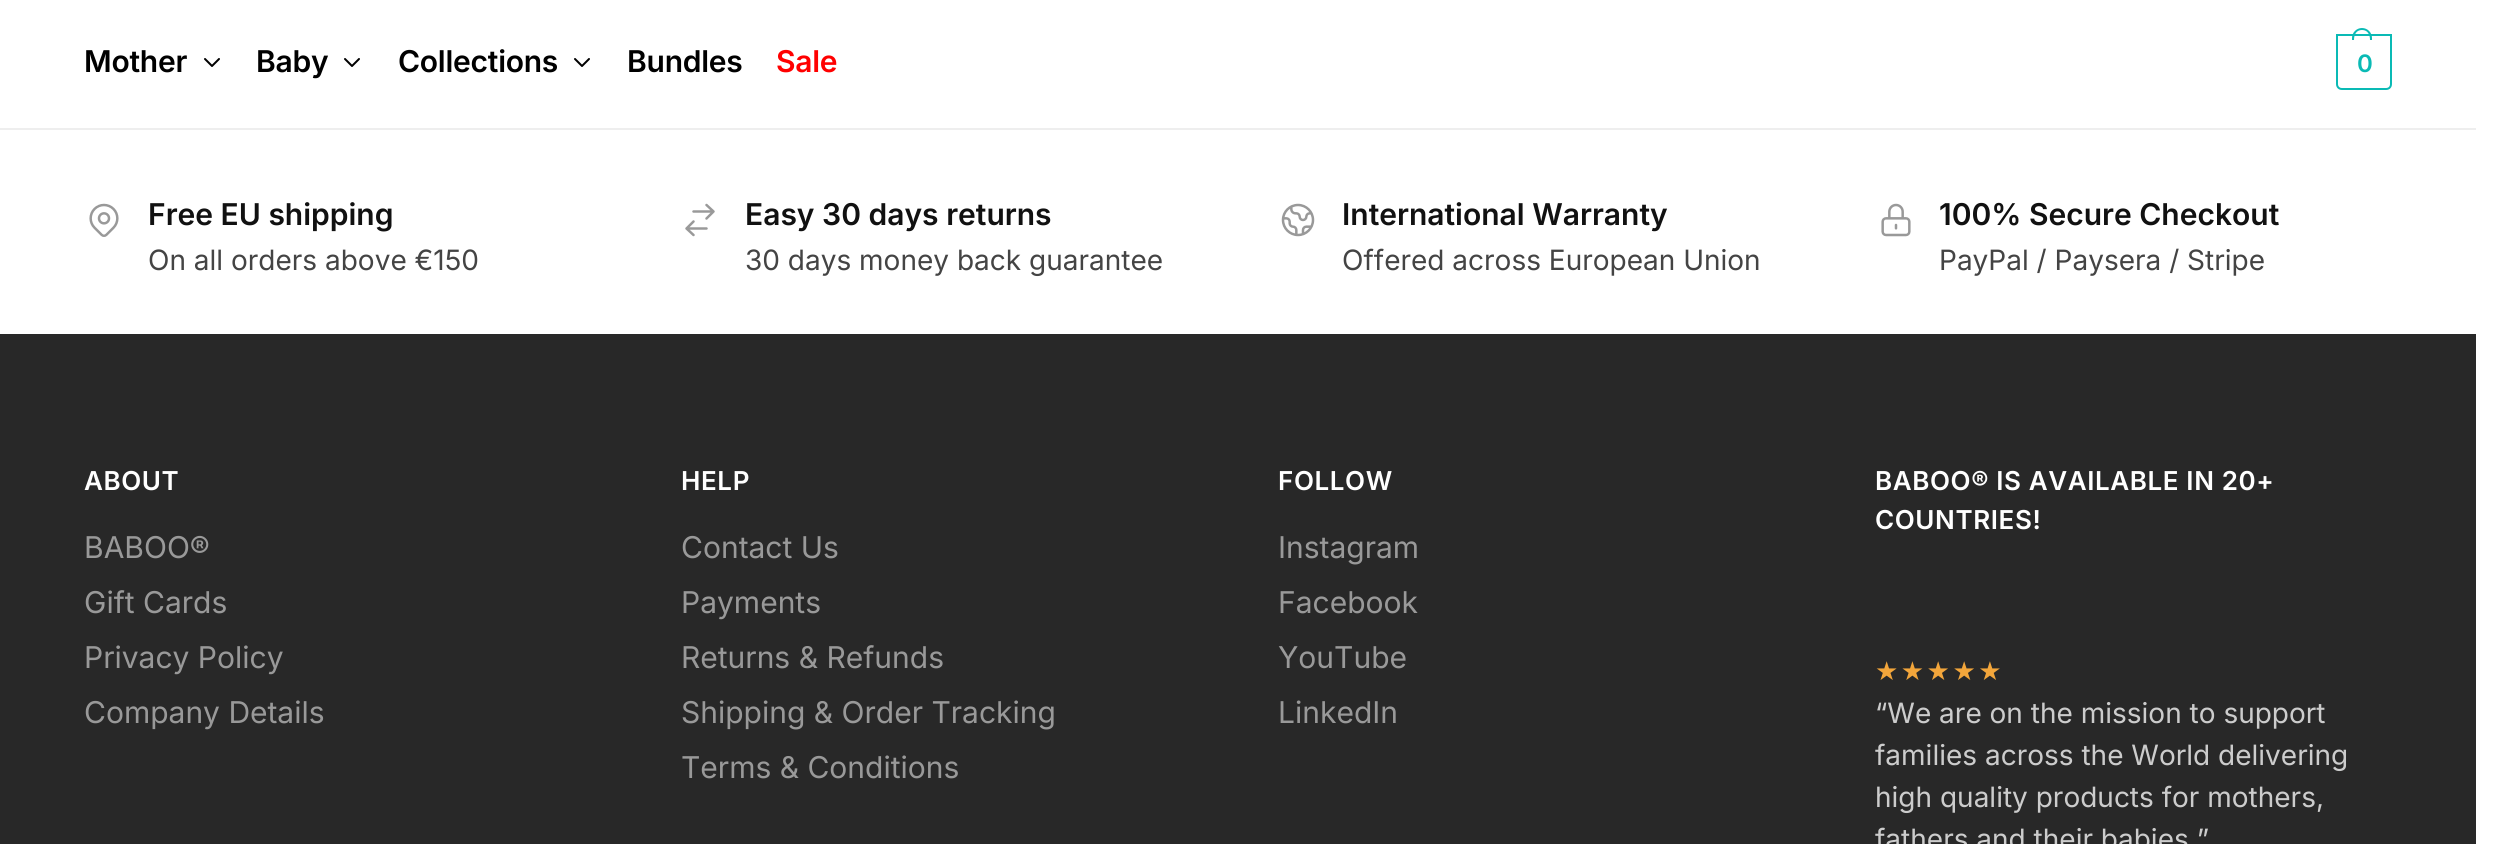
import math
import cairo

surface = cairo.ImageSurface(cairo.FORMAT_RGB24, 2505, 844)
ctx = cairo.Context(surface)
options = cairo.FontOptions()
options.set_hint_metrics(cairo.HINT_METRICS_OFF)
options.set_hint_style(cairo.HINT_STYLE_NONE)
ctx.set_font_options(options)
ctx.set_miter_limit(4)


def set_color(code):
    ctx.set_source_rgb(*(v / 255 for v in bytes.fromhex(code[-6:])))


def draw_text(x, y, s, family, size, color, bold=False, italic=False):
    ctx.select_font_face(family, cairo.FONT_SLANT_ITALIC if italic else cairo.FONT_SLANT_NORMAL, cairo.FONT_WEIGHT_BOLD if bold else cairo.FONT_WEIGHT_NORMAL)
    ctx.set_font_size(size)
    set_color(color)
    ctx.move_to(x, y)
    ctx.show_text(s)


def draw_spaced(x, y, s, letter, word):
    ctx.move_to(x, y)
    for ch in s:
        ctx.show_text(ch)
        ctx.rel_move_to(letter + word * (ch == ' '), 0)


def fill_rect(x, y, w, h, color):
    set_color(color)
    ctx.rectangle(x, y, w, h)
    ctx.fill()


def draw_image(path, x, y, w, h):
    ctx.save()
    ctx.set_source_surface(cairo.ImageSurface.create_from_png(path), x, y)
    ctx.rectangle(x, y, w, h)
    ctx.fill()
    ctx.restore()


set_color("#ffffff")
ctx.paint()
ctx.select_font_face("Inter SemiBold")
ctx.set_font_size(30)
set_color("#000000")
draw_spaced(84, 72, "Mother", -0.25, 0)
ctx.new_path()
ctx.move_to(219, 59)
ctx.line_to(212, 66)
ctx.line_to(205, 59)
ctx.set_line_cap(cairo.LINE_CAP_ROUND)
ctx.set_line_join(cairo.LINE_JOIN_ROUND)
ctx.stroke()
draw_spaced(256, 72, "Baby", -0.25, 0)
ctx.new_path()
ctx.move_to(359, 59)
ctx.line_to(352, 66)
ctx.line_to(345, 59)
ctx.stroke()
draw_spaced(398, 72, "Collections", -0.25, 0)
ctx.new_path()
ctx.move_to(589, 59)
ctx.line_to(582, 66)
ctx.line_to(575, 59)
ctx.stroke()
draw_spaced(627, 72, "Bundles", -0.25, 0)
set_color("#ff0000")
draw_spaced(776, 72, "Sale", -0.25, 0)
ctx.new_path()
ctx.move_to(2337, 35)
ctx.line_to(2391, 35)
ctx.line_to(2391, 84)
ctx.curve_to(2391, 87, 2389, 89, 2386, 89)
ctx.line_to(2342, 89)
ctx.curve_to(2339, 89, 2337, 87, 2337, 84)
ctx.close_path()
set_color("#0abab5")
ctx.set_line_cap(cairo.LINE_CAP_BUTT)
ctx.set_line_join(cairo.LINE_JOIN_MITER)
ctx.stroke()
ctx.set_fill_rule(cairo.FILL_RULE_EVEN_ODD)
ctx.new_path()
ctx.move_to(2362, 28)
ctx.curve_to(2367.5, 28, 2372, 32.5, 2372, 38)
ctx.line_to(2372, 40)
ctx.line_to(2352, 40)
ctx.line_to(2352, 38)
ctx.curve_to(2352, 32.5, 2356.5, 28, 2362, 28)
ctx.close_path()
ctx.move_to(2362, 30)
ctx.curve_to(2368, 30, 2370, 35, 2370, 40)
ctx.line_to(2354, 40)
ctx.curve_to(2354, 35, 2356, 30, 2362, 30)
ctx.close_path()
ctx.fill()
ctx.set_font_size(24)
draw_spaced(2357, 72, "0", -1, 0)
fill_rect(0, 128, 2476, 2, "#eeeeee")
draw_text(148, 225, "Free EU shipping", "Inter SemiBold", 30, "#111111")
draw_image("assets/img1.png", 89, 203, 30, 34)
draw_text(148, 270, "On all orders above €150", "Inter", 28, "#444444")
draw_text(745, 225, "Easy 30 days returns", "Inter SemiBold", 30, "#111111")
ctx.new_path()
ctx.move_to(693.5, 211.5)
ctx.line_to(713.5, 211.5)
ctx.move_to(713.5, 211.5)
ctx.line_to(706.5, 205)
ctx.move_to(713.5, 211.5)
ctx.line_to(706.5, 218.5)
ctx.move_to(706.5, 228.5)
ctx.line_to(686.5, 228.5)
ctx.move_to(686.5, 228.5)
ctx.line_to(693.5, 235)
ctx.move_to(686.5, 228.5)
ctx.line_to(693.5, 221.5)
set_color("#999999")
ctx.set_line_width(2.5)
ctx.set_line_cap(cairo.LINE_CAP_ROUND)
ctx.set_line_join(cairo.LINE_JOIN_ROUND)
ctx.stroke()
draw_text(745, 270, "30 days money back guarantee", "Inter", 28, "#444444")
draw_text(1342, 225, "International Warranty", "Inter SemiBold", 30, "#111111")
draw_image("assets/img2.png", 1281, 203, 34, 34)
draw_text(1342, 270, "Offered across European Union", "Inter", 28, "#444444")
draw_text(1939, 225, "100% Secure Checkout", "Inter SemiBold", 30, "#111111")
draw_image("assets/img3.png", 1881, 203, 30, 34)
draw_text(1939, 270, "PayPal / Paysera / Stripe", "Inter", 28, "#444444")
fill_rect(0, 334, 2476, 510, "#282828")
ctx.select_font_face("Inter SemiBold")
ctx.set_font_size(26)
set_color("#ffffff")
draw_spaced(84, 490, "ABOUT", 0.6, 0)
draw_text(84, 558, "BABOO®", "Inter", 30, "#999999")
draw_text(84, 613, "Gift Cards", "Inter", 30, "#999999")
draw_text(84, 668, "Privacy Policy", "Inter", 30, "#999999")
draw_text(84, 723, "Company Details", "Inter", 30, "#999999")
ctx.select_font_face("Inter SemiBold")
ctx.set_font_size(26)
set_color("#ffffff")
draw_spaced(681, 490, "HELP", 0.6, 0)
draw_text(681, 558, "Contact Us", "Inter", 30, "#999999")
draw_text(681, 613, "Payments", "Inter", 30, "#999999")
draw_text(681, 668, "Returns & Refunds", "Inter", 30, "#999999")
draw_text(681, 723, "Shipping & Order Tracking", "Inter", 30, "#999999")
draw_text(681, 778, "Terms & Conditions", "Inter", 30, "#999999")
ctx.select_font_face("Inter SemiBold")
ctx.set_font_size(26)
set_color("#ffffff")
draw_spaced(1278, 490, "FOLLOW", 0.6, 0)
draw_text(1278, 558, "Instagram", "Inter", 30, "#999999")
draw_text(1278, 613, "Facebook", "Inter", 30, "#999999")
draw_text(1278, 668, "YouTube", "Inter", 30, "#999999")
draw_text(1278, 723, "LinkedIn", "Inter", 30, "#999999")
ctx.select_font_face("Inter SemiBold")
ctx.set_font_size(26)
set_color("#ffffff")
draw_spaced(1875, 490, "BABOO® IS AVAILABLE IN 20+", 0.6, 0)
draw_spaced(1875, 529, "COUNTRIES!", 0.6, 0)
ctx.select_font_face("DejaVu Sans")
set_color("#f3a63b")
draw_spaced(1875, 680, "★★★★★", 2.5, 0)
draw_text(1875, 723, "“We are on the mission to support", "Inter", 28, "#cccccc")
draw_text(1875, 765, "families across the World delivering", "Inter", 28, "#cccccc")
draw_text(1875, 807, "high quality products for mothers,", "Inter", 28, "#cccccc")
draw_text(1875, 849, "fathers and their babies.”", "Inter", 28, "#cccccc")
surface.write_to_png("output.png")
